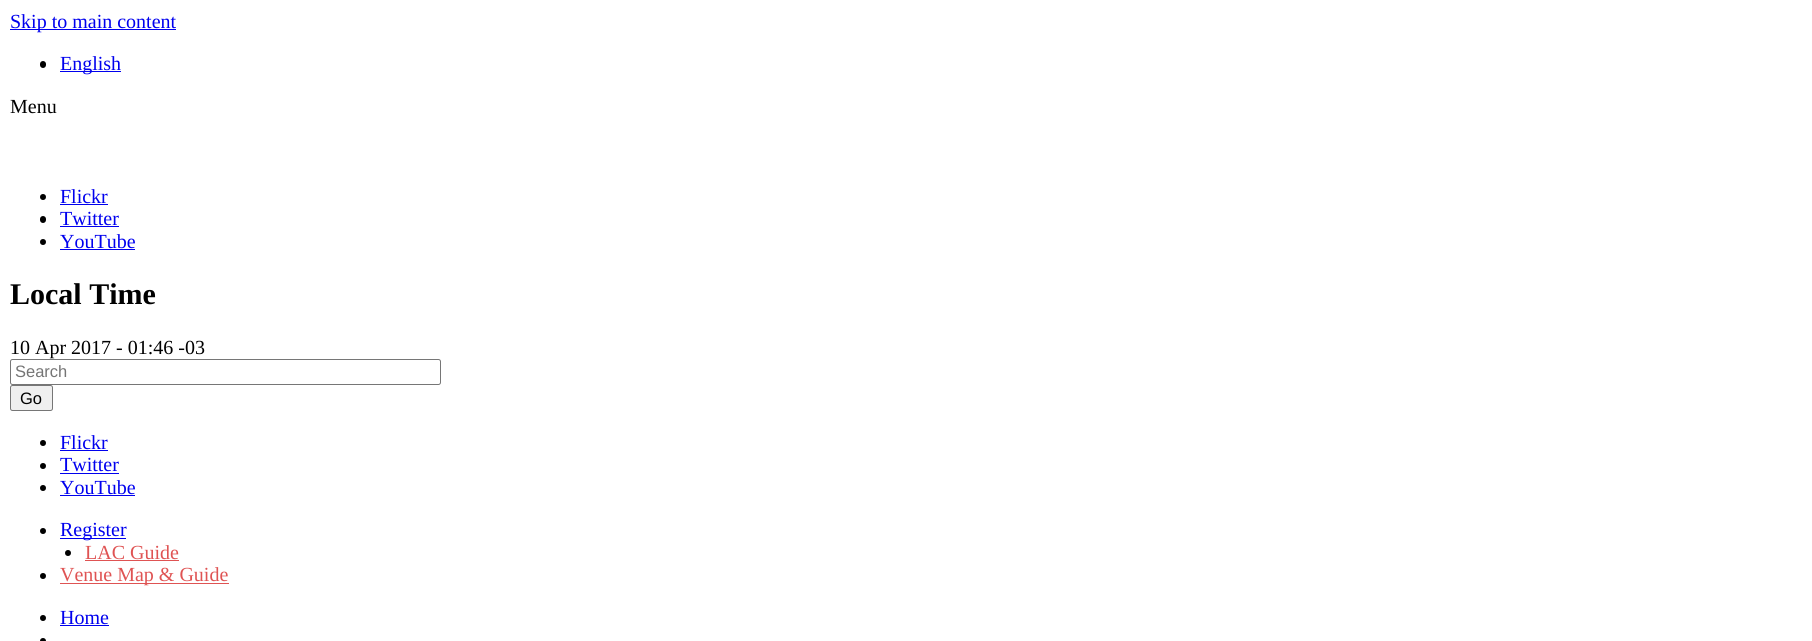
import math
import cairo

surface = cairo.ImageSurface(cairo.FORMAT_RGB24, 1812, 641)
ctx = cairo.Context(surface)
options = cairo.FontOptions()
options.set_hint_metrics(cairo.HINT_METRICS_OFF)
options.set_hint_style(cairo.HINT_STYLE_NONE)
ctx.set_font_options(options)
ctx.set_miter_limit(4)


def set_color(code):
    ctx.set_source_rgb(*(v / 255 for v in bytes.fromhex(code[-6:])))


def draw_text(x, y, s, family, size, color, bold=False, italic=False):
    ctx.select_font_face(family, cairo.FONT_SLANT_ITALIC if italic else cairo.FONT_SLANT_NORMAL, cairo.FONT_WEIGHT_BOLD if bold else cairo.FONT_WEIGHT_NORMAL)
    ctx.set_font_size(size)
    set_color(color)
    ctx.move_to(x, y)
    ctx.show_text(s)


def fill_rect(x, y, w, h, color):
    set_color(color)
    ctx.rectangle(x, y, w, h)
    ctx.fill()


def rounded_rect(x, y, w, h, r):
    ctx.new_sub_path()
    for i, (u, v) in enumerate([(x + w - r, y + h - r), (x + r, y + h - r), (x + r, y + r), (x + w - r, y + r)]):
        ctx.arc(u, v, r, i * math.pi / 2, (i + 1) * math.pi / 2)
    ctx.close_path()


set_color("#ffffff")
ctx.paint()
fill_rect(10, 29, 166, 1, "#0000ee")
draw_text(10, 28, "Skip to main content", "Liberation Serif", 20, "#0000ee")
set_color("#000000")
rounded_rect(40, 61, 6, 7, 3)
ctx.fill()
fill_rect(60, 71, 61, 1, "#0000ee")
draw_text(60, 70, "English", "Liberation Serif", 20, "#0000ee")
draw_text(10, 113, "Menu", "Liberation Serif", 20, "#000000")
ctx.new_path()
ctx.arc(43, 197, 3, 0, 2 * math.pi)
ctx.fill()
draw_text(60, 203, "Flickr", "Liberation Serif", 20, "#0000ee")
fill_rect(60, 204, 48, 1, "#0000ee")
set_color("#000000")
rounded_rect(40, 216, 6, 7, 3)
ctx.fill()
draw_text(60, 225, "Twitter", "Liberation Serif", 20, "#0000ee")
fill_rect(60, 226, 59, 1, "#0000ee")
set_color("#000000")
ctx.new_path()
ctx.arc(43, 242, 3, 0, 2 * math.pi)
ctx.fill()
draw_text(60, 248, "YouTube", "Liberation Serif", 20, "#0000ee")
fill_rect(60, 249, 75, 1, "#0000ee")
draw_text(10, 304, "Local Time", "Liberation Serif", 30, "#000000", bold=True)
draw_text(10, 354, "10 Apr 2017 - 01:46 -03", "Liberation Serif", 20, "#000000")
rounded_rect(10.5, 359.5, 430, 25, 2)
set_color("#767676")
ctx.set_line_width(1)
ctx.stroke()
draw_text(15, 377, "Search", "Liberation Sans", 16.5, "#757575")
set_color("#efefef")
rounded_rect(10.5, 385.5, 42, 25, 2)
ctx.fill_preserve()
set_color("#767676")
ctx.stroke()
draw_text(20, 404, "Go", "Liberation Sans", 16.5, "#000000")
ctx.new_path()
ctx.arc(43, 443, 3, 0, 2 * math.pi)
ctx.fill()
draw_text(60, 449, "Flickr", "Liberation Serif", 20, "#0000ee")
fill_rect(60, 450, 48, 1, "#0000ee")
set_color("#000000")
ctx.new_path()
ctx.arc(43, 466, 3, 0, 2 * math.pi)
ctx.fill()
draw_text(60, 471, "Twitter", "Liberation Serif", 20, "#0000ee")
fill_rect(60, 473, 59, 1, "#0000ee")
set_color("#000000")
ctx.new_path()
ctx.arc(43, 488, 3, 0, 2 * math.pi)
ctx.fill()
draw_text(60, 494, "YouTube", "Liberation Serif", 20, "#0000ee")
fill_rect(60, 495, 75, 1, "#0000ee")
set_color("#000000")
ctx.new_path()
ctx.arc(43, 531, 3, 0, 2 * math.pi)
ctx.fill()
fill_rect(60, 538, 66, 1, "#0000ee")
draw_text(60, 536, "Register", "Liberation Serif", 20, "#0000ee")
set_color("#000000")
ctx.new_path()
ctx.arc(68, 553, 3, 0, 2 * math.pi)
ctx.fill()
draw_text(85, 559, "LAC Guide", "Liberation Serif", 20, "#df5353")
fill_rect(85, 560, 94, 1, "#df5353")
set_color("#000000")
ctx.new_path()
ctx.arc(43, 576, 3, 0, 2 * math.pi)
ctx.fill()
fill_rect(60, 583, 169, 1, "#df5353")
draw_text(60, 581, "Venue Map & Guide", "Liberation Serif", 20, "#df5353")
set_color("#000000")
ctx.new_path()
ctx.arc(43, 618, 3, 0, 2 * math.pi)
ctx.fill()
draw_text(60, 624, "Home", "Liberation Serif", 20, "#0000ee")
fill_rect(60, 625, 49, 1, "#0000ee")
set_color("#000000")
ctx.new_path()
ctx.arc(43, 641, 3, 0, 2 * math.pi)
ctx.fill()
surface.write_to_png("output.png")
